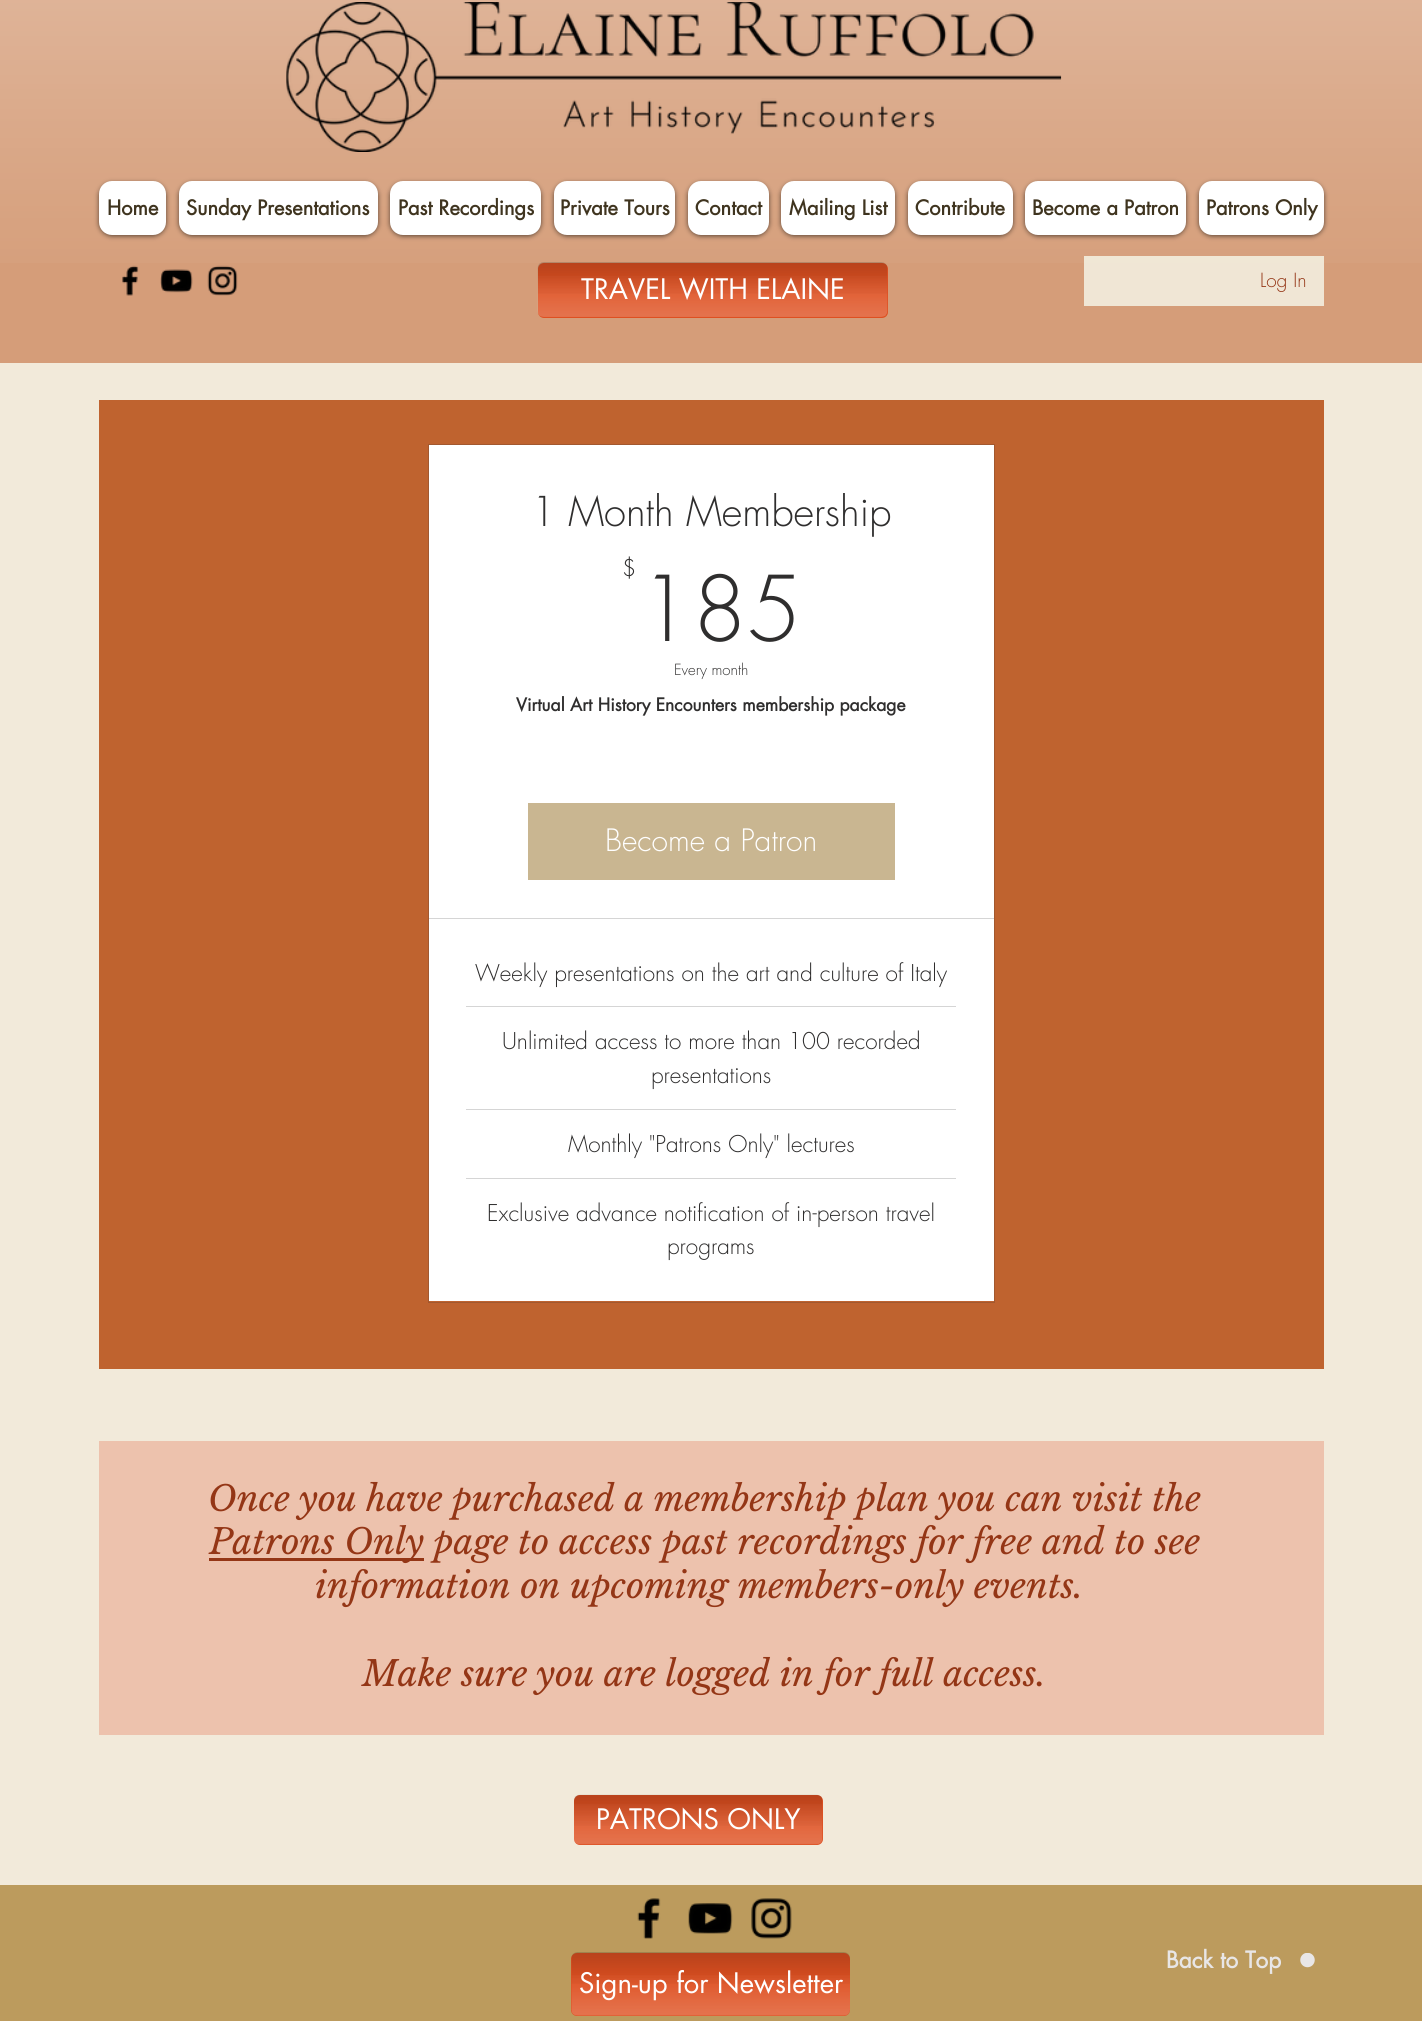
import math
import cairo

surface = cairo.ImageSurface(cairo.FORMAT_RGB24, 1422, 2021)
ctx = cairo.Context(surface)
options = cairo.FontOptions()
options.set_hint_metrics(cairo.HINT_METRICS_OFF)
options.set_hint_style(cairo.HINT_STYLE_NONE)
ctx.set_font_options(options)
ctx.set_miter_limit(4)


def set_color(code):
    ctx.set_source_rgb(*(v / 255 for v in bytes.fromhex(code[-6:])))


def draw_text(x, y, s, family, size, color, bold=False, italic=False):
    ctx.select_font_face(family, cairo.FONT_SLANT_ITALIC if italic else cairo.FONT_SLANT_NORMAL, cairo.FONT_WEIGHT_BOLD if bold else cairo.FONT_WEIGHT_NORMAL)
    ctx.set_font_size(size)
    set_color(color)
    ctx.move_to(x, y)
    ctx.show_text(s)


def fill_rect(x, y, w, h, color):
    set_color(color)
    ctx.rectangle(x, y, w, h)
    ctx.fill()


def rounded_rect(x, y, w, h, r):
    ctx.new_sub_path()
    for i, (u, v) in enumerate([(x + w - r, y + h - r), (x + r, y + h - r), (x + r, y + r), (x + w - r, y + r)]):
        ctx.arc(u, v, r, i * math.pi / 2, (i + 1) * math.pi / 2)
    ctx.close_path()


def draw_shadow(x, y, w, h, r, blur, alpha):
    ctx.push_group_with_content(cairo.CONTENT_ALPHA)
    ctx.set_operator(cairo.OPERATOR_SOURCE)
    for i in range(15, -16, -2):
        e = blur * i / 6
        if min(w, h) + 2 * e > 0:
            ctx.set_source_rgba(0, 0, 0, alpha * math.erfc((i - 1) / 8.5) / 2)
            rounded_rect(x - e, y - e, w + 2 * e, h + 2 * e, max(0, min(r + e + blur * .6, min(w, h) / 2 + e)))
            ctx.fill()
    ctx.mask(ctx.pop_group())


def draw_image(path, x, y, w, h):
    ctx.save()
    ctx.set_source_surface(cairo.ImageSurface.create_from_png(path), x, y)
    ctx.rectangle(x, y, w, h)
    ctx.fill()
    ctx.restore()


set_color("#f2eada")
ctx.paint()
fill_rect(0, 0, 1422, 363, "#d59d79")
draw_image("assets/img1.png", 0, 0, 1422, 263)
draw_image("assets/img2.png", 286, 2, 776, 150)
set_color("#000000")
draw_shadow(99, 183, 67, 53, 13, 2.5, 0.6)
set_color("#ffffff")
rounded_rect(99, 181, 67, 54, 13)
ctx.fill()
draw_text(107, 215, "Home", "futura", 20, "#3f341f", bold=True)
set_color("#000000")
draw_shadow(179, 183, 199, 53, 13, 2.5, 0.6)
set_color("#ffffff")
rounded_rect(179, 181, 199, 54, 13)
ctx.fill()
draw_text(186, 215, "Sunday Presentations", "futura", 20, "#3f341f", bold=True)
set_color("#000000")
draw_shadow(390, 183, 151, 53, 13, 2.5, 0.6)
set_color("#ffffff")
rounded_rect(390, 181, 151, 54, 13)
ctx.fill()
draw_text(398, 215, "Past Recordings", "futura", 20, "#3f341f", bold=True)
set_color("#000000")
draw_shadow(554, 183, 121, 53, 13, 2.5, 0.6)
set_color("#ffffff")
rounded_rect(554, 181, 121, 54, 13)
ctx.fill()
draw_text(560, 215, "Private Tours", "futura", 20, "#3f341f", bold=True)
set_color("#000000")
draw_shadow(688, 183, 81, 53, 13, 2.5, 0.6)
set_color("#ffffff")
rounded_rect(688, 181, 81, 54, 13)
ctx.fill()
draw_text(695, 215, "Contact", "futura", 20, "#3f341f", bold=True)
set_color("#000000")
draw_shadow(781, 183, 114, 53, 13, 2.5, 0.6)
set_color("#ffffff")
rounded_rect(781, 181, 114, 54, 13)
ctx.fill()
draw_text(789, 215, "Mailing List", "futura", 20, "#3f341f", bold=True)
set_color("#000000")
draw_shadow(908, 183, 105, 53, 13, 2.5, 0.6)
set_color("#ffffff")
rounded_rect(908, 181, 105, 54, 13)
ctx.fill()
draw_text(915, 215, "Contribute", "futura", 20, "#3f341f", bold=True)
set_color("#000000")
draw_shadow(1025, 183, 161, 53, 13, 2.5, 0.6)
set_color("#ffffff")
rounded_rect(1025, 181, 161, 54, 13)
ctx.fill()
draw_text(1032, 215, "Become a Patron", "futura", 20, "#3f341f", bold=True)
set_color("#000000")
draw_shadow(1199, 183, 125, 53, 13, 2.5, 0.6)
set_color("#ffffff")
rounded_rect(1199, 181, 125, 54, 13)
ctx.fill()
draw_text(1206, 215, "Patrons Only", "futura", 20, "#3f341f", bold=True)
draw_image("assets/img3.png", 122, 265, 17, 31)
draw_image("assets/img4.png", 160, 269, 33, 24)
draw_image("assets/img5.png", 207, 265, 31, 31)
set_color("#de5021")
rounded_rect(538, 263, 350, 55, 6)
ctx.fill()
draw_image("assets/img6.png", 537, 262, 351, 32)
draw_image("assets/img7.png", 537, 276, 351, 41)
draw_text(581, 299, "TRAVEL WITH ELAINE", "futura", 27.5, "#ffffff")
ctx.set_source_rgba(0.949, 0.918, 0.855, 0.95)
ctx.rectangle(1084, 256, 240, 50)
ctx.fill()
draw_text(1260, 287, "Log In", "futura Light", 19, "#943616")
fill_rect(99, 400, 1225, 969, "#bf632f")
ctx.rectangle(428.5, 444.5, 566, 858)
set_color("#a2582f")
ctx.set_line_width(1)
ctx.stroke()
fill_rect(429, 445, 565, 473, "#ffffff")
draw_text(531, 526, "1 Month Membership", "futura Light", 40, "#2f2e2e")
draw_text(622, 576, "$", "futura Light", 22.5, "#2f2e2e")
draw_text(638, 641, "185", "futura Light", 88, "#2f2e2e")
draw_text(674, 675, "Every month", "futura Light", 15, "#2f2e2e")
draw_text(516, 711, "Virtual Art History Encounters membership package", "futura", 17.5, "#2f2e2e", bold=True)
fill_rect(528, 803, 367, 77, "#c9b691")
draw_text(605, 851, "Become a Patron", "futura Light", 30, "#ffffff")
fill_rect(429, 919, 565, 382, "#ffffff")
fill_rect(429, 918, 565, 1, "#d5d5d5")
fill_rect(466, 1006, 490, 1, "#d5d5d5")
draw_text(475, 981, "Weekly presentations on the art and culture of Italy", "futura Light", 22.5, "#2f2e2e")
fill_rect(466, 1109, 490, 1, "#d5d5d5")
draw_text(502, 1049, "Unlimited access to more than 100 recorded", "futura Light", 22.5, "#2f2e2e")
draw_text(651, 1083, "presentations", "futura Light", 22.5, "#2f2e2e")
fill_rect(466, 1178, 490, 1, "#d5d5d5")
draw_text(568, 1152, "Monthly \"Patrons Only\" lectures", "futura Light", 22.5, "#2f2e2e")
draw_text(487, 1221, "Exclusive advance notification of in-person travel", "futura Light", 22.5, "#2f2e2e")
draw_text(667, 1254, "programs", "futura Light", 22.5, "#2f2e2e")
fill_rect(99, 1441, 1225, 294, "#edc2ad")
draw_text(208, 1511, "Once you have purchased a membership plan you can visit the", "Libre Baskerville", 35, "#943616", italic=True)
fill_rect(209, 1558, 215, 3, "#943616")
draw_text(209, 1554, "Patrons Only page to access past recordings for free and to see", "Libre Baskerville", 35, "#943616", italic=True)
draw_text(315, 1598, "information on upcoming members-only events.", "Libre Baskerville", 35, "#943616", italic=True)
draw_text(362, 1686, "Make sure you are logged in for full access.", "Libre Baskerville", 35, "#943616", italic=True)
set_color("#de5021")
rounded_rect(574, 1795, 249, 50, 6)
ctx.fill()
draw_image("assets/img8.png", 574, 1794, 249, 32)
draw_image("assets/img9.png", 574, 1804, 249, 41)
draw_text(596, 1829, "PATRONS ONLY", "futura", 27.5, "#ffffff")
fill_rect(0, 1885, 1422, 136, "#bc9b5d")
draw_image("assets/img10.png", 637, 1898, 24, 41)
draw_image("assets/img11.png", 688, 1903, 45, 31)
draw_image("assets/img12.png", 751, 1898, 41, 41)
draw_text(1166, 1968, "Back to Top", "futura", 22.5, "#e8e6e6", bold=True)
ctx.new_path()
ctx.arc(1307.5, 1960, 6, 0, 2 * math.pi)
ctx.fill()
ctx.save()
ctx.rectangle(1300, 1953, 15, 15)
ctx.clip()
ctx.arc(1307.5, 1960, 6, 0, 2 * math.pi)
ctx.set_line_width(2.5)
ctx.stroke()
ctx.restore()
set_color("#de5021")
rounded_rect(571, 1953, 279, 63, 6)
ctx.fill()
draw_image("assets/img13.png", 571, 1952, 279, 32)
draw_image("assets/img14.png", 571, 1975, 279, 41)
draw_text(579, 1993, "Sign-up for Newsletter", "futura", 27.5, "#ffffff")
surface.write_to_png("output.png")
